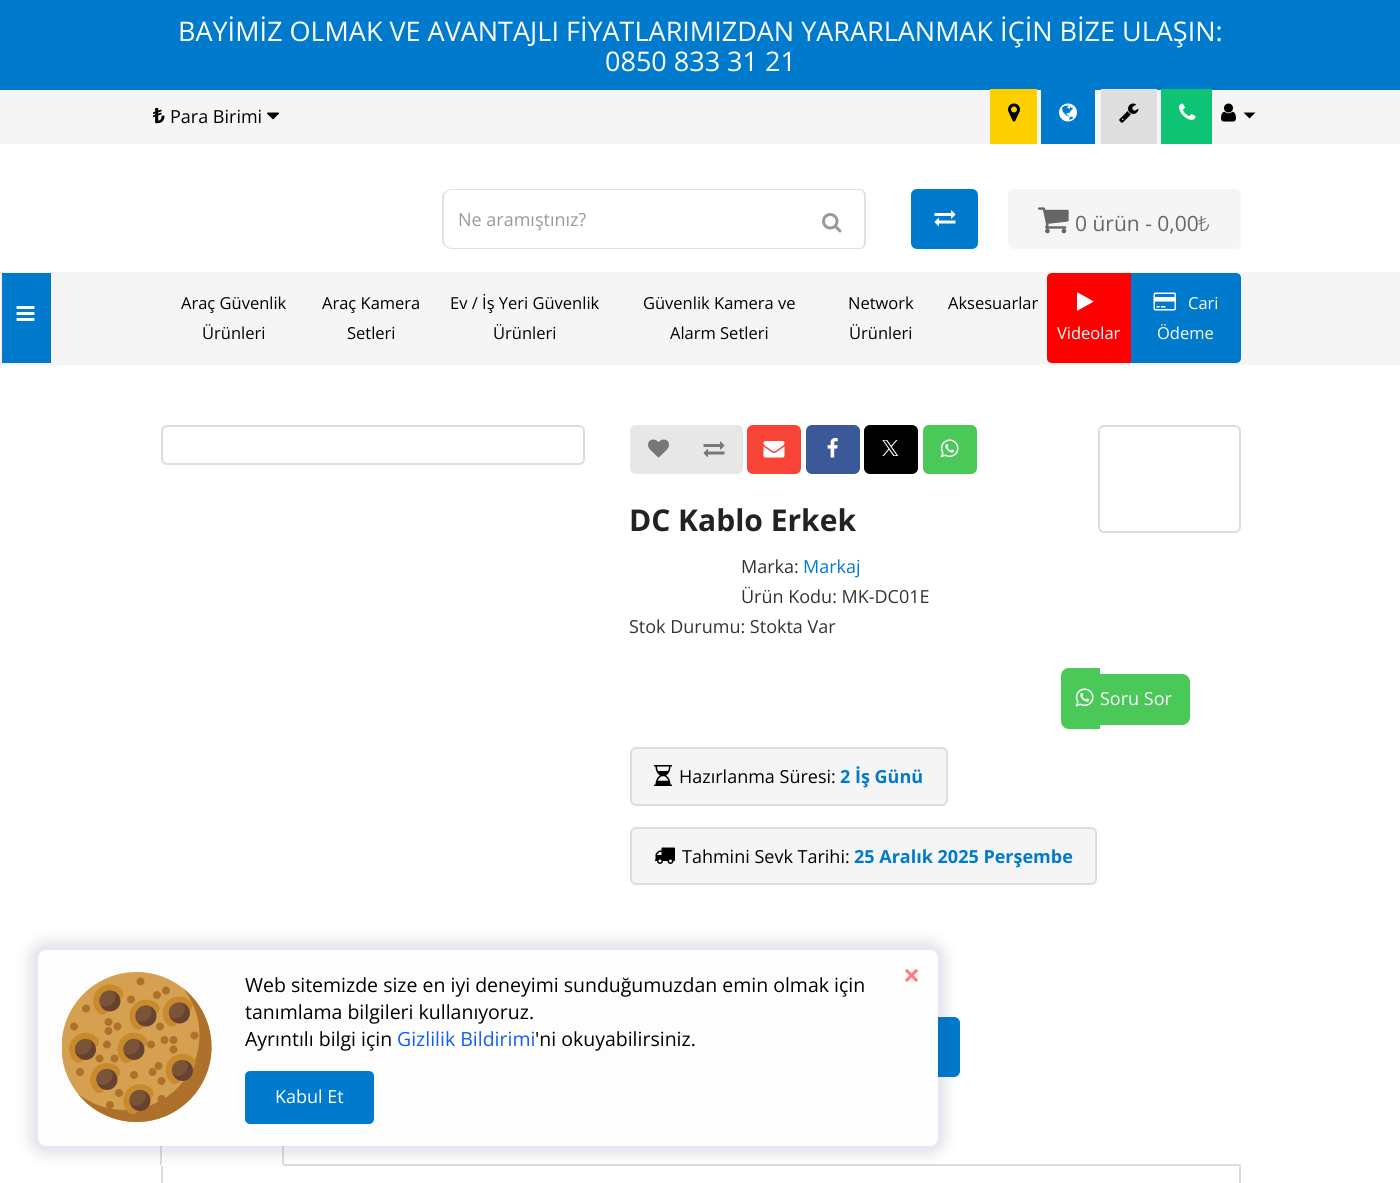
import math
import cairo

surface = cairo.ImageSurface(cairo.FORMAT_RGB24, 1400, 1183)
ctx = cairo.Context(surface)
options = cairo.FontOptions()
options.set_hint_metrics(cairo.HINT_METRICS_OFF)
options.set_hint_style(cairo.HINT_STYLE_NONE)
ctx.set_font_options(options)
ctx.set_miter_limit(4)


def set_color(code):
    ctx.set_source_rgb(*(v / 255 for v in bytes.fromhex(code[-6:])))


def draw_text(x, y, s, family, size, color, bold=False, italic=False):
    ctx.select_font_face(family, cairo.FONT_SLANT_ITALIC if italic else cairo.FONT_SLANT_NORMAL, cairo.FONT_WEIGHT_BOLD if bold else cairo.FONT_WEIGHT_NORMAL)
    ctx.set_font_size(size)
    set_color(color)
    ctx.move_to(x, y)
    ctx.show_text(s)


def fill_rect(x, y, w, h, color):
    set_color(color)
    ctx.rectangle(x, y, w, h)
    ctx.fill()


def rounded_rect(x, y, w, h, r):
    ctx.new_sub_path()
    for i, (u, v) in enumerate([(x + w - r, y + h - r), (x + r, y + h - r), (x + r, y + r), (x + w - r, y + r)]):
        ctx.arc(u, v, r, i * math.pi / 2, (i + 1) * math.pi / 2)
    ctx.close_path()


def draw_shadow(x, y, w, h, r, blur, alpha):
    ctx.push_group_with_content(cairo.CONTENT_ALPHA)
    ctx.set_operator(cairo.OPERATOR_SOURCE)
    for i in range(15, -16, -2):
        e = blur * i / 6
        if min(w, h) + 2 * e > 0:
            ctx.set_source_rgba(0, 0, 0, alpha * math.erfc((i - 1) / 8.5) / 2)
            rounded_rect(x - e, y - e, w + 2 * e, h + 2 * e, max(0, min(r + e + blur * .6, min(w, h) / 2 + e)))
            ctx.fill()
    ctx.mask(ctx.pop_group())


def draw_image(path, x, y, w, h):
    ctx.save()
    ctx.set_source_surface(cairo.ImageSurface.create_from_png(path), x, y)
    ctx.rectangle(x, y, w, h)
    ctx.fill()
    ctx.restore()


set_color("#ffffff")
ctx.paint()
fill_rect(0, 0, 1400, 90, "#007acc")
draw_text(178, 41, "BAYİMİZ OLMAK VE AVANTAJLI FİYATLARIMIZDAN YARARLANMAK İÇİN BİZE ULAŞIN:", "Open Sans", 27, "#ffffff")
draw_text(605, 71, "0850 833 31 21", "Open Sans", 27, "#ffffff")
fill_rect(0, 90, 1400, 54, "#f5f5f5")
draw_text(153, 123, "₺", "Noto Sans", 21, "#000000", bold=True)
draw_text(170, 123, "Para Birimi", "Open Sans", 18, "#000000")
draw_image("assets/img1.png", 267, 112, 12, 8)
fill_rect(990, 89, 47, 55, "#fed000")
draw_image("assets/img2.png", 1008, 103, 12, 19)
fill_rect(1041, 90, 54, 54, "#007acc")
draw_image("assets/img3.png", 1059, 103, 18, 19)
fill_rect(1101, 89, 56, 55, "#dedede")
draw_image("assets/img4.png", 1119, 103, 20, 20)
fill_rect(1161, 89, 51, 55, "#0fc374")
draw_image("assets/img5.png", 1179, 103, 17, 17)
draw_image("assets/img6.png", 1221, 103, 15, 19)
set_color("#000000")
ctx.new_path()
ctx.move_to(1243.5, 112.5)
ctx.line_to(1255.5, 112.5)
ctx.line_to(1249.5, 118.5)
ctx.close_path()
ctx.fill()
set_color("#e0e0e0")
ctx.set_fill_rule(cairo.FILL_RULE_EVEN_ODD)
ctx.new_path()
ctx.move_to(452, 189)
ctx.line_to(801, 189)
ctx.line_to(801, 249)
ctx.line_to(452, 249)
ctx.curve_to(447, 249, 442, 245, 442, 240)
ctx.line_to(442, 198)
ctx.curve_to(442, 193, 447, 189, 452, 189)
ctx.close_path()
ctx.move_to(452, 190)
ctx.line_to(801, 190)
ctx.line_to(801, 248)
ctx.line_to(452, 248)
ctx.curve_to(447, 248, 444, 244, 444, 240)
ctx.line_to(444, 198)
ctx.curve_to(444, 194, 447, 190, 452, 190)
ctx.close_path()
ctx.fill()
draw_text(458, 226, "Ne aramıştınız?", "Open Sans", 18, "#999999")
set_color("#e0e0e0")
ctx.new_path()
ctx.move_to(800, 189)
ctx.line_to(860, 189)
ctx.curve_to(863, 189, 866, 192, 866, 195)
ctx.line_to(866, 243)
ctx.curve_to(866, 246, 863, 249, 860, 249)
ctx.line_to(800, 249)
ctx.close_path()
ctx.move_to(800, 190)
ctx.line_to(860, 190)
ctx.curve_to(862, 190, 864, 193, 864, 195)
ctx.line_to(864, 243)
ctx.curve_to(864, 245, 862, 248, 860, 248)
ctx.line_to(800, 248)
ctx.close_path()
ctx.fill()
draw_image("assets/img7.png", 822, 213, 20, 20)
set_color("#007acc")
rounded_rect(911, 189, 67, 60, 6)
ctx.fill()
draw_image("assets/img8.png", 934, 210, 22, 17)
set_color("#f5f5f5")
rounded_rect(1008, 189, 233, 60, 6)
ctx.fill()
draw_image("assets/img9.png", 1038, 207, 31, 27)
draw_text(1075, 231, "0 ürün - 0,00", "Open Sans", 21, "#666666")
draw_text(1198, 231, "₺", "Noto Sans Light", 21, "#666666")
fill_rect(0, 272, 1400, 93, "#eeeeee")
set_color("#f5f5f5")
rounded_rect(0, 272, 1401, 93, 6)
ctx.fill()
fill_rect(2, 273, 49, 90, "#007acc")
draw_image("assets/img10.png", 16, 306, 19, 15)
draw_text(181, 309, "Araç Güvenlik", "Open Sans", 16.5, "#000000")
draw_text(202, 339, "Ürünleri", "Open Sans", 16.5, "#000000")
draw_text(322, 309, "Araç Kamera", "Open Sans", 16.5, "#000000")
draw_text(347, 339, "Setleri", "Open Sans", 16.5, "#000000")
draw_text(450, 309, "Ev / İş Yeri Güvenlik", "Open Sans", 16.5, "#000000")
draw_text(493, 339, "Ürünleri", "Open Sans", 16.5, "#000000")
draw_text(643, 309, "Güvenlik Kamera ve", "Open Sans", 16.5, "#000000")
draw_text(670, 339, "Alarm Setleri", "Open Sans", 16.5, "#000000")
draw_text(848, 309, "Network", "Open Sans", 16.5, "#000000")
draw_text(849, 339, "Ürünleri", "Open Sans", 16.5, "#000000")
draw_text(948, 309, "Aksesuarlar", "Open Sans", 16.5, "#000000")
set_color("#ff0000")
ctx.new_path()
ctx.move_to(1052, 273)
ctx.line_to(1131, 273)
ctx.line_to(1131, 363)
ctx.line_to(1052, 363)
ctx.curve_to(1049, 363, 1047, 361, 1047, 358)
ctx.line_to(1047, 278)
ctx.curve_to(1047, 275, 1049, 273, 1052, 273)
ctx.close_path()
ctx.fill()
draw_image("assets/img11.png", 1077, 292, 17, 19)
draw_text(1057, 339, "Videolar", "Open Sans", 16.5, "#ffffff")
set_color("#007acc")
ctx.new_path()
ctx.move_to(1131, 273)
ctx.line_to(1236, 273)
ctx.curve_to(1239, 273, 1241, 275, 1241, 278)
ctx.line_to(1241, 358)
ctx.curve_to(1241, 361, 1239, 363, 1236, 363)
ctx.line_to(1131, 363)
ctx.close_path()
ctx.fill()
draw_image("assets/img12.png", 1153, 292, 23, 19)
draw_text(1188, 309, "Cari", "Open Sans", 16.5, "#ffffff")
draw_text(1157, 339, "Ödeme", "Open Sans", 16.5, "#ffffff")
rounded_rect(162, 426, 422, 38, 5)
set_color("#dddddd")
ctx.stroke()
set_color("#e7e7e7")
ctx.new_path()
ctx.move_to(636, 425)
ctx.line_to(687, 425)
ctx.line_to(687, 474)
ctx.line_to(636, 474)
ctx.curve_to(632.5, 474, 630, 471.5, 630, 468)
ctx.line_to(630, 431)
ctx.curve_to(630, 427.5, 632.5, 425, 636, 425)
ctx.close_path()
ctx.fill()
draw_image("assets/img13.png", 648, 439, 21, 19)
ctx.new_path()
ctx.move_to(686, 425)
ctx.line_to(737, 425)
ctx.curve_to(740.5, 425, 743, 427.5, 743, 431)
ctx.line_to(743, 468)
ctx.curve_to(743, 471.5, 740.5, 474, 737, 474)
ctx.line_to(686, 474)
ctx.close_path()
ctx.fill()
draw_image("assets/img14.png", 703, 441, 22, 16)
set_color("#f84437")
rounded_rect(747, 425, 54, 49, 6)
ctx.fill()
draw_image("assets/img15.png", 763, 441, 22, 17)
set_color("#3b5998")
rounded_rect(806, 425, 54, 49, 6)
ctx.fill()
draw_image("assets/img16.png", 827, 438, 11, 20)
set_color("#000000")
rounded_rect(864, 425, 54, 49, 6)
ctx.fill()
draw_image("assets/img17.png", 882, 440, 17, 16)
set_color("#4ac959")
rounded_rect(923, 425, 54, 49, 6)
ctx.fill()
draw_image("assets/img18.png", 940, 439, 19, 19)
draw_text(629, 531, "DC Kablo Erkek", "Open Sans", 30, "#222222", bold=True)
draw_text(741, 573, "Marka:", "Open Sans", 18, "#333333")
draw_text(803, 573, "Markaj", "Open Sans", 18, "#007acc")
draw_text(741, 603, "Ürün Kodu: MK-DC01E", "Open Sans", 18, "#333333")
draw_text(629, 633, "Stok Durumu: Stokta Var", "Open Sans", 18, "#333333")
set_color("#f5f5f5")
rounded_rect(631, 748, 316, 57, 5)
ctx.fill_preserve()
set_color("#dddddd")
ctx.stroke()
draw_image("assets/img19.png", 654, 765, 18, 21)
draw_text(679, 783, "Hazırlanma Süresi:", "Open Sans", 18, "#000000")
draw_text(840, 783, "2 İş Günü", "Open Sans", 18, "#007acc", bold=True)
set_color("#f5f5f5")
rounded_rect(631, 828, 465, 56, 5)
ctx.fill_preserve()
set_color("#dddddd")
ctx.stroke()
draw_image("assets/img20.png", 654, 847, 21, 17)
draw_text(682, 863, "Tahmini Sevk Tarihi:", "Open Sans", 18, "#000000")
draw_text(854, 863, "25 Aralık 2025 Perşembe", "Open Sans", 18, "#007acc", bold=True)
rounded_rect(791, 1017, 169, 60, 6)
ctx.fill()
rounded_rect(1099, 426, 141, 106, 5)
set_color("#dedede")
ctx.stroke()
set_color("#4ac959")
ctx.new_path()
ctx.move_to(1069, 668)
ctx.line_to(1100, 668)
ctx.line_to(1100, 729)
ctx.line_to(1069, 729)
ctx.curve_to(1064.5, 729, 1061, 725.5, 1061, 721)
ctx.line_to(1061, 676)
ctx.curve_to(1061, 671.5, 1064.5, 668, 1069, 668)
ctx.close_path()
ctx.fill()
ctx.new_path()
ctx.move_to(1100, 674)
ctx.line_to(1182, 674)
ctx.curve_to(1186.5, 674, 1190, 677.5, 1190, 682)
ctx.line_to(1190, 717)
ctx.curve_to(1190, 721.5, 1186.5, 725, 1182, 725)
ctx.line_to(1100, 725)
ctx.close_path()
ctx.fill()
draw_image("assets/img18.png", 1075, 688, 19, 19)
draw_text(1100, 705, "Soru Sor", "Open Sans", 18, "#ffffff")
fill_rect(284, 1164, 957, 2, "#dddddd")
ctx.set_fill_rule(cairo.FILL_RULE_WINDING)
ctx.new_path()
ctx.move_to(282, 1109)
ctx.line_to(284, 1111)
ctx.line_to(284, 1166)
ctx.line_to(282, 1164)
ctx.line_to(282, 1113)
ctx.curve_to(282, 1112, 282, 1111, 281, 1110)
ctx.close_path()
ctx.fill()
ctx.new_path()
ctx.move_to(160, 1166)
ctx.line_to(160, 1111)
ctx.line_to(162, 1109)
ctx.line_to(163, 1110)
ctx.curve_to(162, 1111, 162, 1112, 162, 1113)
ctx.line_to(162, 1164)
ctx.close_path()
ctx.fill()
fill_rect(1239, 1166, 2, 17, "#dddddd")
fill_rect(161, 1166, 2, 17, "#dddddd")
set_color("#223865")
draw_shadow(30, 942, 915, 212, 15, 7.5, 0.15)
set_color("#fdfdfd")
rounded_rect(38, 950, 900, 196, 8)
ctx.fill()
draw_image("assets/img21.png", 62, 972, 150, 150)
draw_text(245, 992, "Web sitemizde size en iyi deneyimi sunduğumuzdan emin olmak için", "Open Sans", 19.5, "#000000")
draw_text(245, 1019, "tanımlama bilgileri kullanıyoruz.", "Open Sans", 19.5, "#000000")
draw_text(245, 1046, "Ayrıntılı bilgi için", "Open Sans", 19.5, "#000000")
draw_text(397, 1046, "Gizlilik Bildirimi", "Open Sans", 19.5, "#115cfa")
draw_text(535, 1046, "'ni okuyabilirsiniz.", "Open Sans", 19.5, "#000000")
draw_text(903, 986, "×", "Open Sans", 30, "#fe7f7f", bold=True)
set_color("#007acc")
rounded_rect(245, 1071, 129, 53, 5)
ctx.fill()
draw_text(275, 1103, "Kabul Et", "Open Sans", 18, "#ffffff")
surface.write_to_png("output.png")
